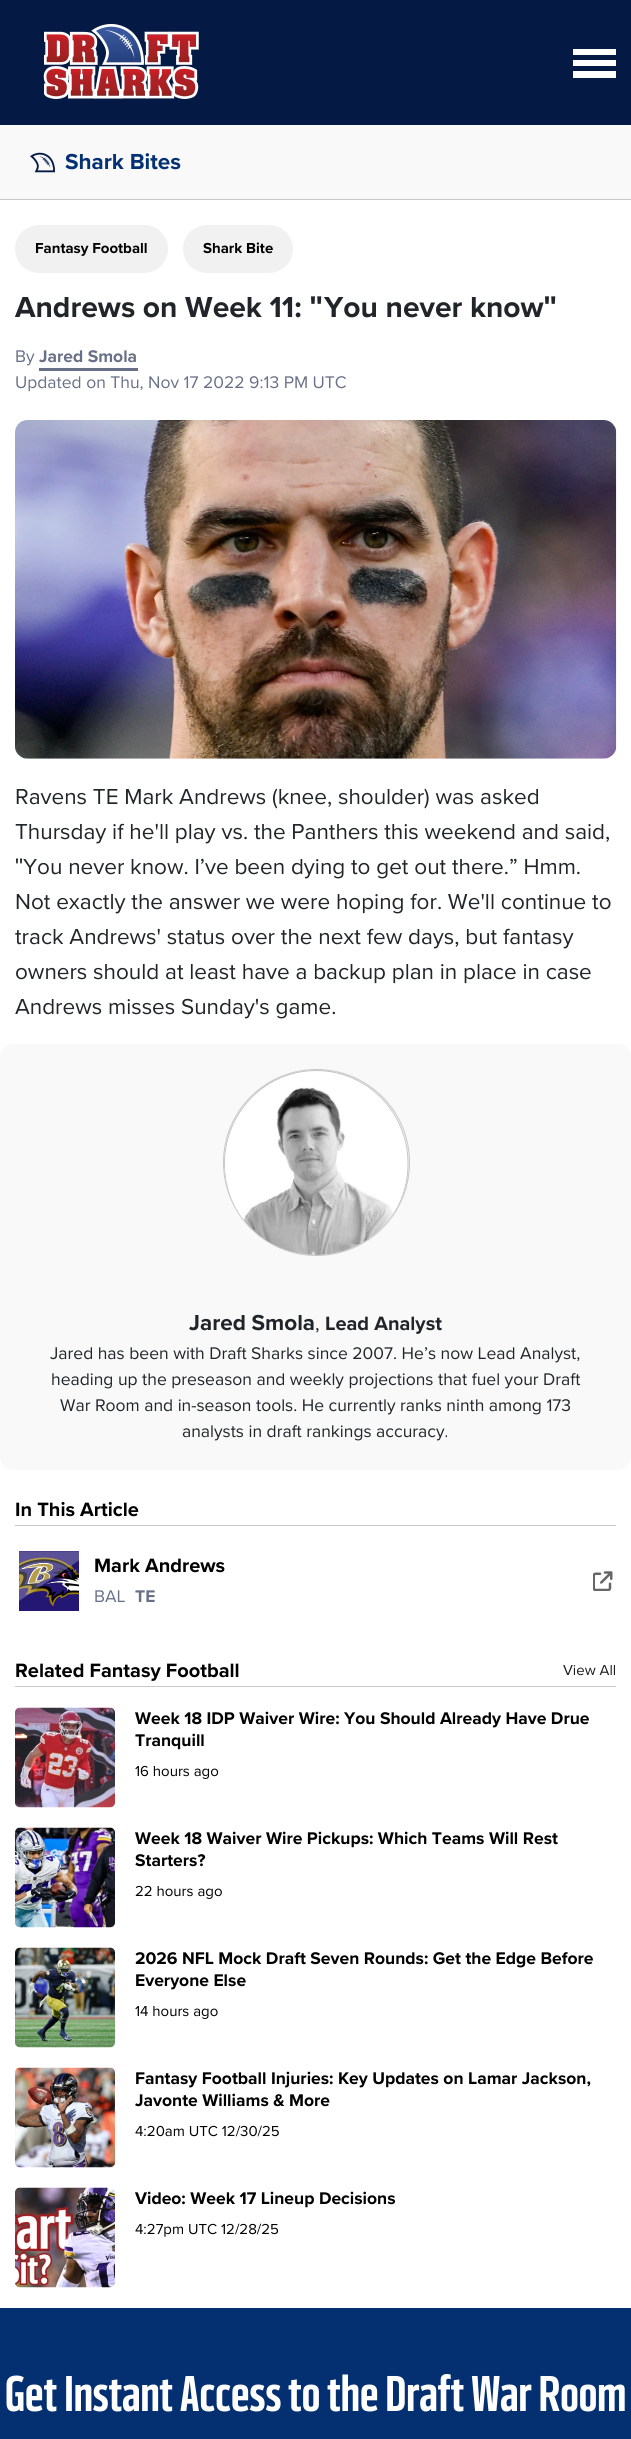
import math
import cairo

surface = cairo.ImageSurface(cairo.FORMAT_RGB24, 631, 2439)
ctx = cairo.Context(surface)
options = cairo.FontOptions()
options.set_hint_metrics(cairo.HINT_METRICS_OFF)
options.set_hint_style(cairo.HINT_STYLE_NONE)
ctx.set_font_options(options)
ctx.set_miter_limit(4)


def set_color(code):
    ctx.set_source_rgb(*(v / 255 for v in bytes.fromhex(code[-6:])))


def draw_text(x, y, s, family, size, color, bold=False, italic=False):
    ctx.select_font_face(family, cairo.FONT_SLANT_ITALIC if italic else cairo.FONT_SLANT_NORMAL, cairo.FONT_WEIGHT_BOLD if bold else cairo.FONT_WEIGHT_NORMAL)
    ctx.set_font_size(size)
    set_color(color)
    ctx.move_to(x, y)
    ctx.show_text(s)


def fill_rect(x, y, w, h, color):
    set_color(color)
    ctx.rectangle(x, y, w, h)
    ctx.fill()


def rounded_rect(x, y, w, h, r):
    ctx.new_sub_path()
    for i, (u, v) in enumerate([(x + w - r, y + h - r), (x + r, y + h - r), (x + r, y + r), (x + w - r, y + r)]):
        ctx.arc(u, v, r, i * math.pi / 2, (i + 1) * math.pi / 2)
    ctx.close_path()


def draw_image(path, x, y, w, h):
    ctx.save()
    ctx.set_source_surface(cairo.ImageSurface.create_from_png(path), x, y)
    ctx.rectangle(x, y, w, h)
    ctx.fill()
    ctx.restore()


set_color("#ffffff")
ctx.paint()
fill_rect(0, 0, 631, 125, "#041944")
draw_image("assets/img1.png", 43, 23, 156, 76)
fill_rect(573, 60, 43, 6, "#ffffff")
fill_rect(573, 49, 43, 6, "#ffffff")
fill_rect(573, 71, 43, 7, "#ffffff")
fill_rect(0, 125, 631, 74, "#f9f9f9")
fill_rect(0, 199, 631, 1, "#c8c8c8")
draw_image("assets/img2.png", 30, 152, 25, 21)
draw_text(65, 169, "Shark Bites", "Proxima Nova", 22.5, "#043173", bold=True)
set_color("#f1f1f1")
rounded_rect(15, 225, 153, 48, 24)
ctx.fill()
draw_text(35, 253, "Fantasy Football", "Proxima Nova", 15, "#000000", bold=True)
set_color("#f1f1f1")
rounded_rect(183, 225, 110, 48, 24)
ctx.fill()
draw_text(203, 253, "Shark Bite", "Proxima Nova", 15, "#000000", bold=True)
draw_text(15, 317, "Andrews on Week 11:", "Proxima Nova", 30, "#212529", bold=True)
draw_text(309, 317, "\"", "Liberation Sans", 30, "#212529", bold=True)
draw_text(324, 317, "You never know", "Proxima Nova", 30, "#212529", bold=True)
draw_text(543, 317, "\"", "Liberation Sans", 30, "#212529", bold=True)
draw_text(15, 362, "By", "Proxima Nova", 17.5, "#687087")
draw_text(39, 362, "Jared Smola", "Proxima Nova", 17.5, "#687087", bold=True)
fill_rect(39, 368, 99, 3, "#687087")
draw_text(15, 388, "Updated on Thu, Nov 17 2022 9:13 PM UTC", "Proxima Nova", 17.5, "#687087")
draw_image("assets/img3.png", 15, 420, 602, 339)
draw_text(15, 804, "Ravens TE Mark Andrews (knee, shoulder) was asked", "Proxima Nova", 22.5, "#212529")
draw_text(15, 839, "Thursday if he'll play vs. the Panthers this weekend and said,", "Proxima Nova", 22.5, "#212529")
draw_text(15, 874, "\"", "Liberation Sans", 22.5, "#212529")
draw_text(23, 874, "You never know. I’ve been dying to get out there.” Hmm.", "Proxima Nova", 22.5, "#212529")
draw_text(15, 909, "Not exactly the answer we were hoping for. We'll continue to", "Proxima Nova", 22.5, "#212529")
draw_text(15, 944, "track Andrews' status over the next few days, but fantasy", "Proxima Nova", 22.5, "#212529")
draw_text(15, 979, "owners should at least have a backup plan in place in case", "Proxima Nova", 22.5, "#212529")
draw_text(15, 1014, "Andrews misses Sunday's game.", "Proxima Nova", 22.5, "#212529")
set_color("#f9f9f9")
rounded_rect(0, 1044, 631, 426, 13)
ctx.fill()
ctx.arc(316.5, 1162.5, 93, 0, 2 * math.pi)
set_color("#c8c8c8")
ctx.set_line_width(1)
ctx.stroke()
ctx.save()
rounded_rect(224, 1070, 185, 185, 92.5)
ctx.clip()
ctx.new_path()
ctx.move_to(316, 1070.5)
ctx.curve_to(367, 1070.5, 408, 1112.5, 408, 1164)
ctx.curve_to(408, 1215, 367, 1257, 316, 1257)
ctx.curve_to(265.5, 1257, 224.5, 1215, 224.5, 1164)
ctx.curve_to(224.5, 1112.5, 265.5, 1070.5, 316, 1070.5)
ctx.close_path()
ctx.set_line_width(1.2)
ctx.stroke()
ctx.restore()
draw_image("assets/img4.png", 225, 1071, 183, 184)
draw_text(189, 1330, "Jared Smola", "Proxima Nova", 22.5, "#212529", bold=True)
draw_text(315, 1330, ",", "Proxima Nova", 20, "#212529")
draw_text(325, 1330, "Lead Analyst", "Proxima Nova", 20, "#212529", bold=True)
draw_text(50, 1359, "Jared has been with Draft Sharks since 2007. He’s now Lead Analyst,", "Proxima Nova", 17.5, "#212529")
draw_text(51, 1385, "heading up the preseason and weekly projections that fuel your Draft", "Proxima Nova", 17.5, "#212529")
draw_text(60, 1411, "War Room and in-season tools. He currently ranks ninth among 173", "Proxima Nova", 17.5, "#212529")
draw_text(182, 1437, "analysts in draft rankings accuracy.", "Proxima Nova", 17.5, "#212529")
fill_rect(15, 1525, 601, 1, "#c8c8c8")
draw_text(15, 1516, "In This Article", "Proxima Nova", 20, "#000000", bold=True)
draw_image("assets/img5.png", 19, 1551, 60, 60)
draw_text(94, 1572, "Mark Andrews", "Proxima Nova", 20, "#000000", bold=True)
draw_text(94, 1602, "BAL", "Proxima Nova", 17.5, "#687087")
draw_text(135, 1602, "TE", "Proxima Nova", 17.5, "#687087", bold=True)
draw_image("assets/img6.png", 593, 1571, 20, 20)
fill_rect(15, 1686, 601, 1, "#c8c8c8")
draw_text(15, 1677, "Related Fantasy Football", "Proxima Nova", 20, "#000000", bold=True)
draw_text(563, 1675, "View All", "Proxima Nova", 15, "#1d1d1d")
draw_image("assets/img7.png", 15, 1707, 100, 101)
draw_text(135, 1724, "Week 18 IDP Waiver Wire: You Should Already Have Drue", "Proxima Nova", 17.5, "#000000", bold=True)
draw_text(135, 1746, "Tranquill", "Proxima Nova", 17.5, "#000000", bold=True)
draw_text(135, 1776, "16 hours ago", "Proxima Nova", 15, "#000000")
draw_image("assets/img8.png", 15, 1827, 100, 101)
draw_text(135, 1844, "Week 18 Waiver Wire Pickups: Which Teams Will Rest", "Proxima Nova", 17.5, "#000000", bold=True)
draw_text(135, 1866, "Starters?", "Proxima Nova", 17.5, "#000000", bold=True)
draw_text(135, 1896, "22 hours ago", "Proxima Nova", 15, "#000000")
draw_image("assets/img9.png", 15, 1947, 100, 101)
draw_text(135, 1964, "2026 NFL Mock Draft Seven Rounds: Get the Edge Before", "Proxima Nova", 17.5, "#000000", bold=True)
draw_text(135, 1986, "Everyone Else", "Proxima Nova", 17.5, "#000000", bold=True)
draw_text(135, 2016, "14 hours ago", "Proxima Nova", 15, "#000000")
draw_image("assets/img10.png", 15, 2067, 100, 101)
draw_text(135, 2084, "Fantasy Football Injuries: Key Updates on Lamar Jackson,", "Proxima Nova", 17.5, "#000000", bold=True)
draw_text(135, 2106, "Javonte Williams & More", "Proxima Nova", 17.5, "#000000", bold=True)
draw_text(135, 2136, "4:20am UTC 12/30/25", "Proxima Nova", 15, "#000000")
draw_image("assets/img11.png", 15, 2187, 100, 101)
draw_text(135, 2204, "Video: Week 17 Lineup Decisions", "Proxima Nova", 17.5, "#000000", bold=True)
draw_text(135, 2234, "4:27pm UTC 12/28/25", "Proxima Nova", 15, "#000000")
fill_rect(0, 2308, 631, 131, "#043071")
draw_text(5, 2411, "Get Instant Access to the Draft War Room", "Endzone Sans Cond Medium", 50, "#ffffff")
surface.write_to_png("output.png")
